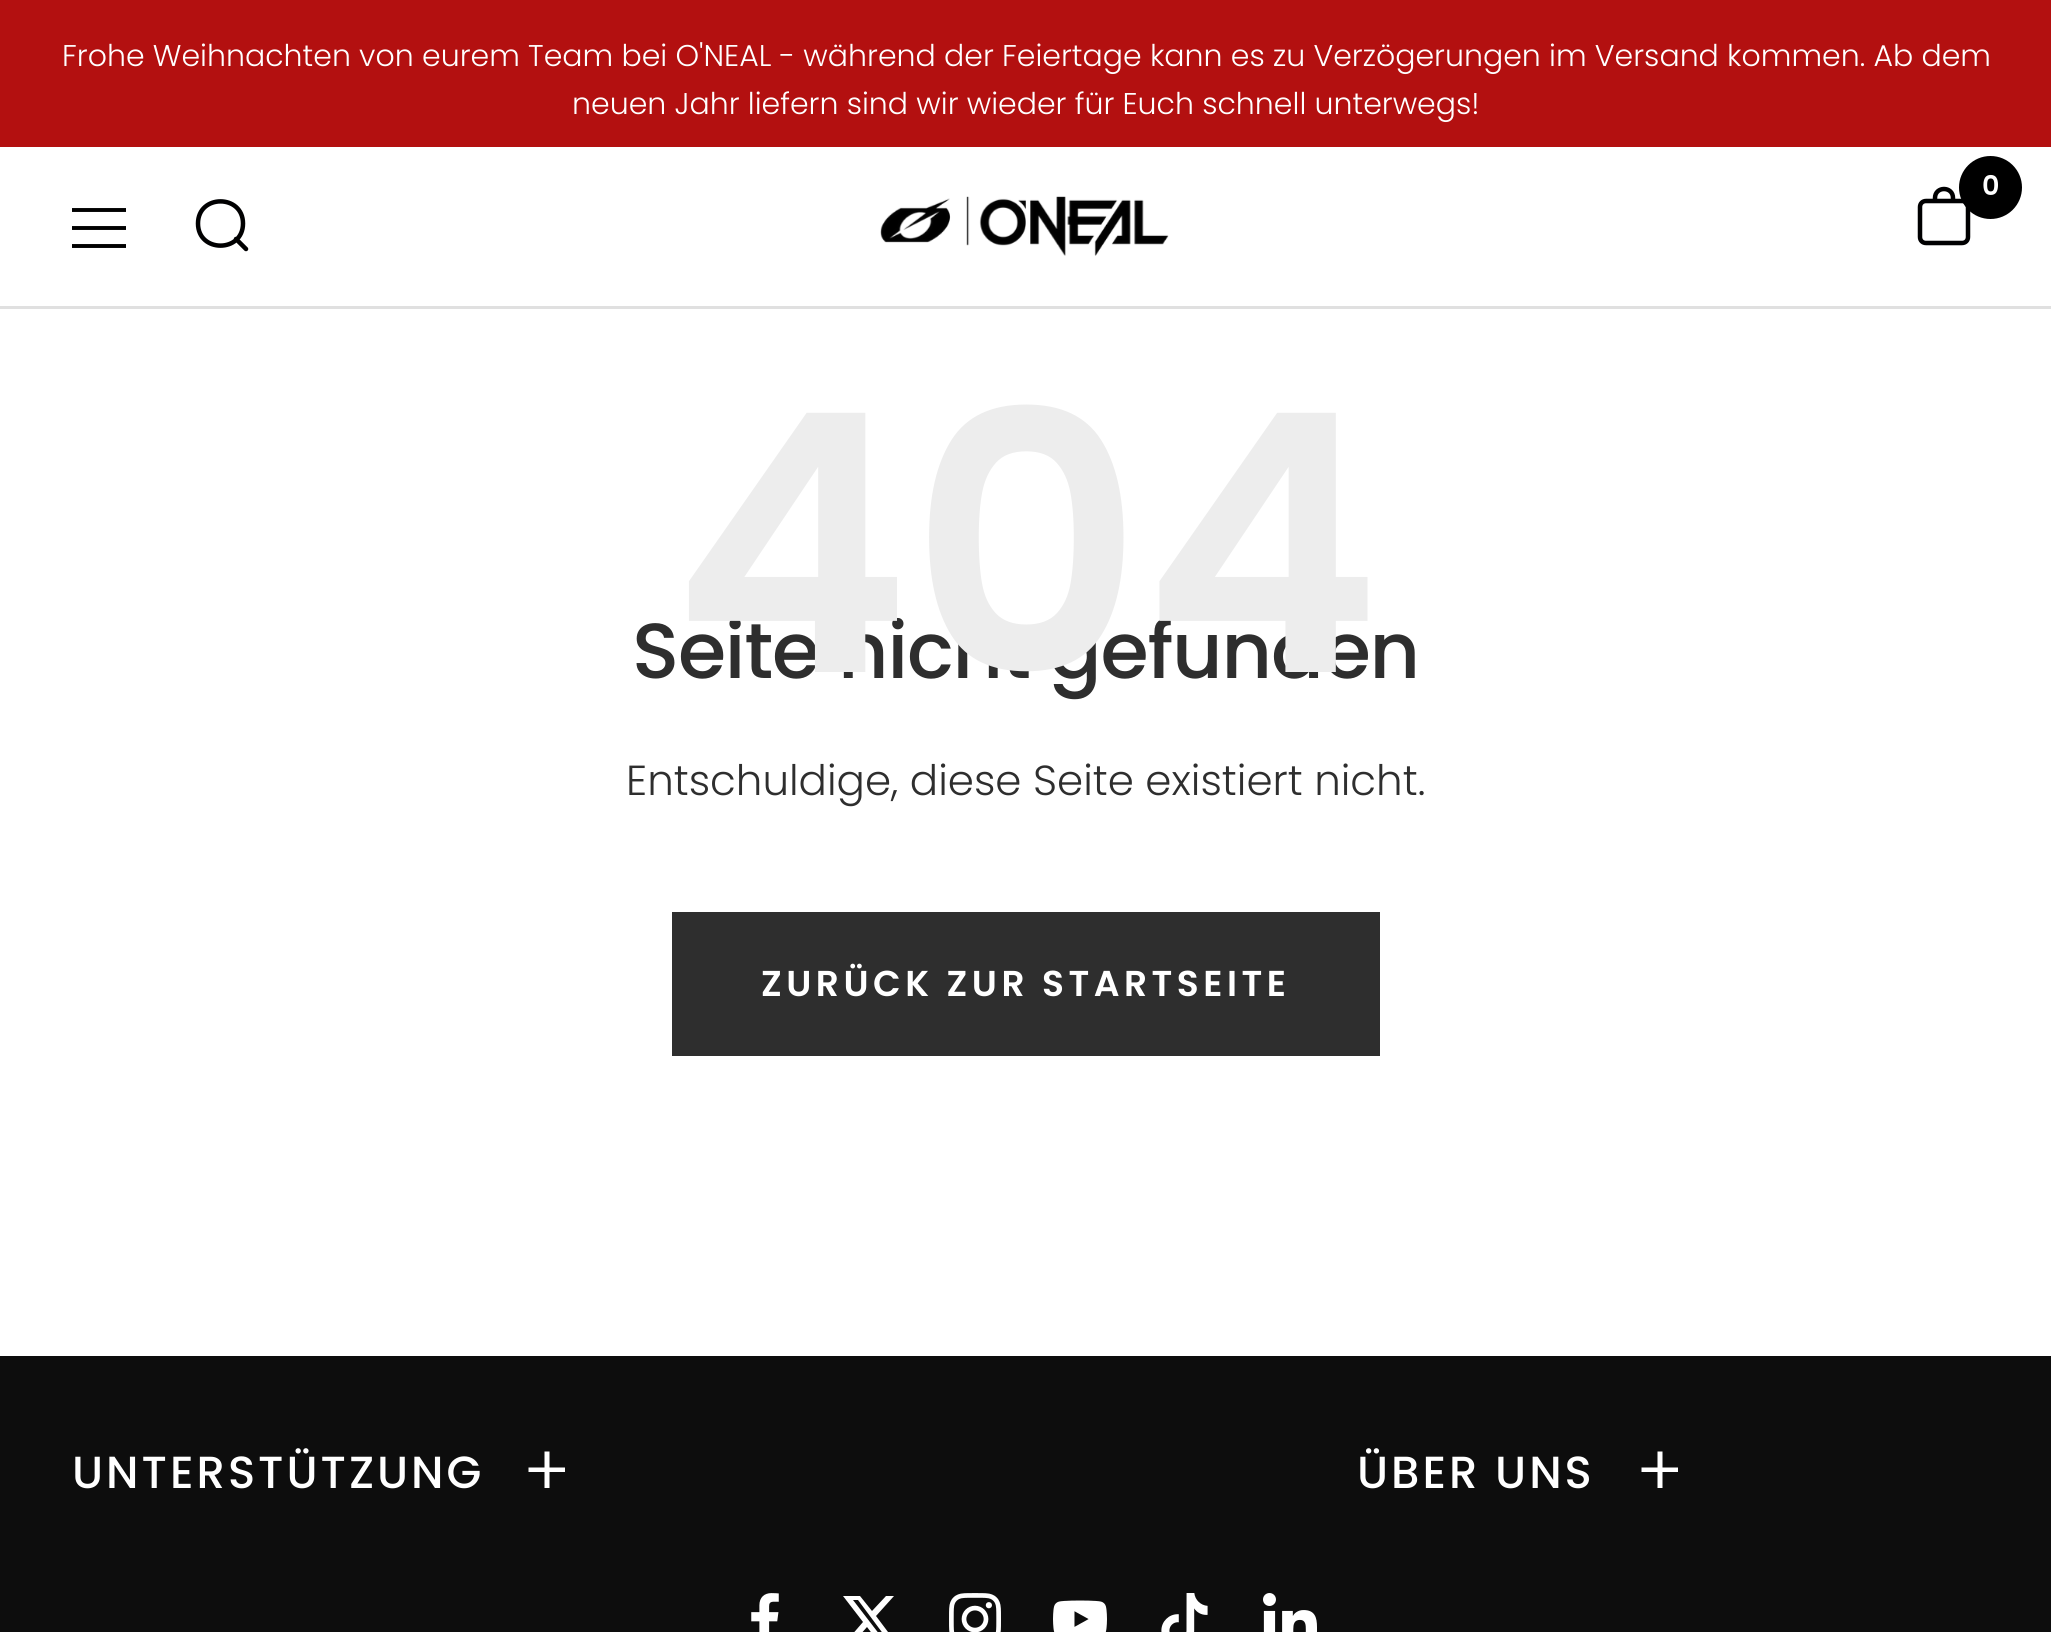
import math
import cairo

surface = cairo.ImageSurface(cairo.FORMAT_RGB24, 2051, 1632)
ctx = cairo.Context(surface)
options = cairo.FontOptions()
options.set_hint_metrics(cairo.HINT_METRICS_OFF)
options.set_hint_style(cairo.HINT_STYLE_NONE)
ctx.set_font_options(options)
ctx.set_miter_limit(4)


def set_color(code):
    ctx.set_source_rgb(*(v / 255 for v in bytes.fromhex(code[-6:])))


def draw_text(x, y, s, family, size, color, bold=False, italic=False):
    ctx.select_font_face(family, cairo.FONT_SLANT_ITALIC if italic else cairo.FONT_SLANT_NORMAL, cairo.FONT_WEIGHT_BOLD if bold else cairo.FONT_WEIGHT_NORMAL)
    ctx.set_font_size(size)
    set_color(color)
    ctx.move_to(x, y)
    ctx.show_text(s)


def draw_spaced(x, y, s, letter, word):
    ctx.move_to(x, y)
    for ch in s:
        ctx.show_text(ch)
        ctx.rel_move_to(letter + word * (ch == ' '), 0)


def fill_rect(x, y, w, h, color):
    set_color(color)
    ctx.rectangle(x, y, w, h)
    ctx.fill()


def draw_image(path, x, y, w, h):
    ctx.save()
    ctx.set_source_surface(cairo.ImageSurface.create_from_png(path), x, y)
    ctx.rectangle(x, y, w, h)
    ctx.fill()
    ctx.restore()


set_color("#ffffff")
ctx.paint()
fill_rect(0, 0, 2051, 147, "#b31010")
draw_text(62, 66, "Frohe Weihnachten von eurem Team bei O'NEAL - während der Feiertage kann es zu Verzögerungen im Versand kommen. Ab dem", "Poppins Light", 30, "#ffffff")
draw_text(572, 114, "neuen Jahr liefern sind wir wieder für Euch schnell unterwegs!", "Poppins Light", 30, "#ffffff")
fill_rect(0, 306, 2051, 3, "#e0e0e0")
ctx.new_path()
ctx.move_to(1962, 243)
ctx.line_to(1926, 243)
ctx.curve_to(1922.5, 243, 1920, 240.5, 1920, 237)
ctx.line_to(1920, 207)
ctx.curve_to(1920, 203.5, 1922.5, 201, 1926, 201)
ctx.line_to(1962, 201)
ctx.curve_to(1965.5, 201, 1968, 203.5, 1968, 207)
ctx.line_to(1968, 237)
ctx.curve_to(1968, 240.5, 1965.5, 243, 1962, 243)
ctx.close_path()
ctx.move_to(1935, 198)
ctx.curve_to(1935, 186, 1953, 186, 1953, 198)
ctx.move_to(1953, 201)
ctx.line_to(1953, 198)
ctx.move_to(1935, 201)
ctx.line_to(1935, 198)
set_color("#000001")
ctx.set_line_width(4.5)
ctx.set_line_cap(cairo.LINE_CAP_ROUND)
ctx.set_line_join(cairo.LINE_JOIN_ROUND)
ctx.stroke()
set_color("#000000")
ctx.arc(1990.5, 187.5, 31.5, 0, 2 * math.pi)
ctx.fill()
draw_text(1982, 195, "0", "Poppins SemiBold", 27, "#ffffff")
ctx.new_path()
ctx.move_to(72, 210)
ctx.line_to(126, 210)
ctx.move_to(72, 246)
ctx.line_to(126, 246)
ctx.close_path()
ctx.move_to(72, 228)
ctx.line_to(126, 228)
ctx.close_path()
set_color("#000000")
ctx.set_line_width(3.9)
ctx.set_line_cap(cairo.LINE_CAP_BUTT)
ctx.set_line_join(cairo.LINE_JOIN_MITER)
ctx.stroke()
ctx.new_path()
ctx.move_to(243, 223.5)
ctx.curve_to(243, 253, 198, 253, 198, 223.5)
ctx.curve_to(198, 194, 243, 194, 243, 223.5)
ctx.close_path()
ctx.move_to(246, 249)
ctx.line_to(236, 239)
set_color("#000001")
ctx.set_line_width(4.5)
ctx.set_line_cap(cairo.LINE_CAP_ROUND)
ctx.set_line_join(cairo.LINE_JOIN_ROUND)
ctx.stroke()
draw_image("assets/img1.png", 880, 196, 289, 60)
ctx.select_font_face("Poppins Medium")
ctx.set_font_size(78)
set_color("#2e2e2e")
draw_spaced(632, 678, "Seite nicht gefunden", -1.2, 0)
draw_text(672, 672, "404", "Poppins SemiBold", 360, "#ededed")
draw_text(626, 795, "Entschuldige, diese Seite existiert nicht.", "Poppins Light", 42, "#2e2e2e")
fill_rect(672, 912, 708, 144, "#2e2e2e")
ctx.select_font_face("Poppins SemiBold")
ctx.set_font_size(36)
set_color("#ffffff")
draw_spaced(761, 996, "ZURÜCK ZUR STARTSEITE", 4.5, 0)
fill_rect(0, 1356, 2051, 276, "#0d0d0d")
ctx.select_font_face("Poppins Medium")
ctx.set_font_size(45)
set_color("#ffffff")
draw_spaced(72, 1488, "UNTERSTÜTZUNG", 3, 0)
ctx.new_path()
ctx.move_to(565, 1472)
ctx.line_to(549.5, 1472)
ctx.line_to(549.5, 1488)
ctx.line_to(544.5, 1488)
ctx.line_to(544.5, 1472)
ctx.line_to(528.5, 1472)
ctx.line_to(528.5, 1467.5)
ctx.line_to(544.5, 1467.5)
ctx.line_to(544.5, 1451.5)
ctx.line_to(549.5, 1451.5)
ctx.line_to(549.5, 1467.5)
ctx.line_to(565, 1467.5)
ctx.close_path()
ctx.fill()
draw_spaced(1357, 1488, "ÜBER UNS", 3, 0)
ctx.new_path()
ctx.move_to(1678, 1472)
ctx.line_to(1662.5, 1472)
ctx.line_to(1662.5, 1488)
ctx.line_to(1657.5, 1488)
ctx.line_to(1657.5, 1472)
ctx.line_to(1641.5, 1472)
ctx.line_to(1641.5, 1467.5)
ctx.line_to(1657.5, 1467.5)
ctx.line_to(1657.5, 1451.5)
ctx.line_to(1662.5, 1451.5)
ctx.line_to(1662.5, 1467.5)
ctx.line_to(1678, 1467.5)
ctx.close_path()
ctx.fill()
draw_image("assets/img2.png", 751, 1593, 28, 39)
ctx.new_path()
ctx.move_to(886, 1596)
ctx.line_to(894, 1596)
ctx.line_to(876, 1616)
ctx.line_to(897, 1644)
ctx.line_to(880, 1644)
ctx.line_to(867, 1627)
ctx.line_to(852, 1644)
ctx.line_to(844, 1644)
ctx.line_to(863, 1622)
ctx.line_to(843, 1596)
ctx.line_to(860, 1596)
ctx.line_to(872, 1611)
ctx.close_path()
ctx.move_to(883, 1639)
ctx.line_to(887, 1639)
ctx.line_to(858, 1600)
ctx.line_to(853, 1600)
ctx.close_path()
ctx.fill()
draw_image("assets/img3.png", 949, 1593, 52, 39)
draw_image("assets/img4.png", 1053, 1600, 54, 32)
draw_image("assets/img5.png", 1161, 1593, 47, 39)
draw_image("assets/img6.png", 1263, 1593, 54, 39)
surface.write_to_png("output.png")
